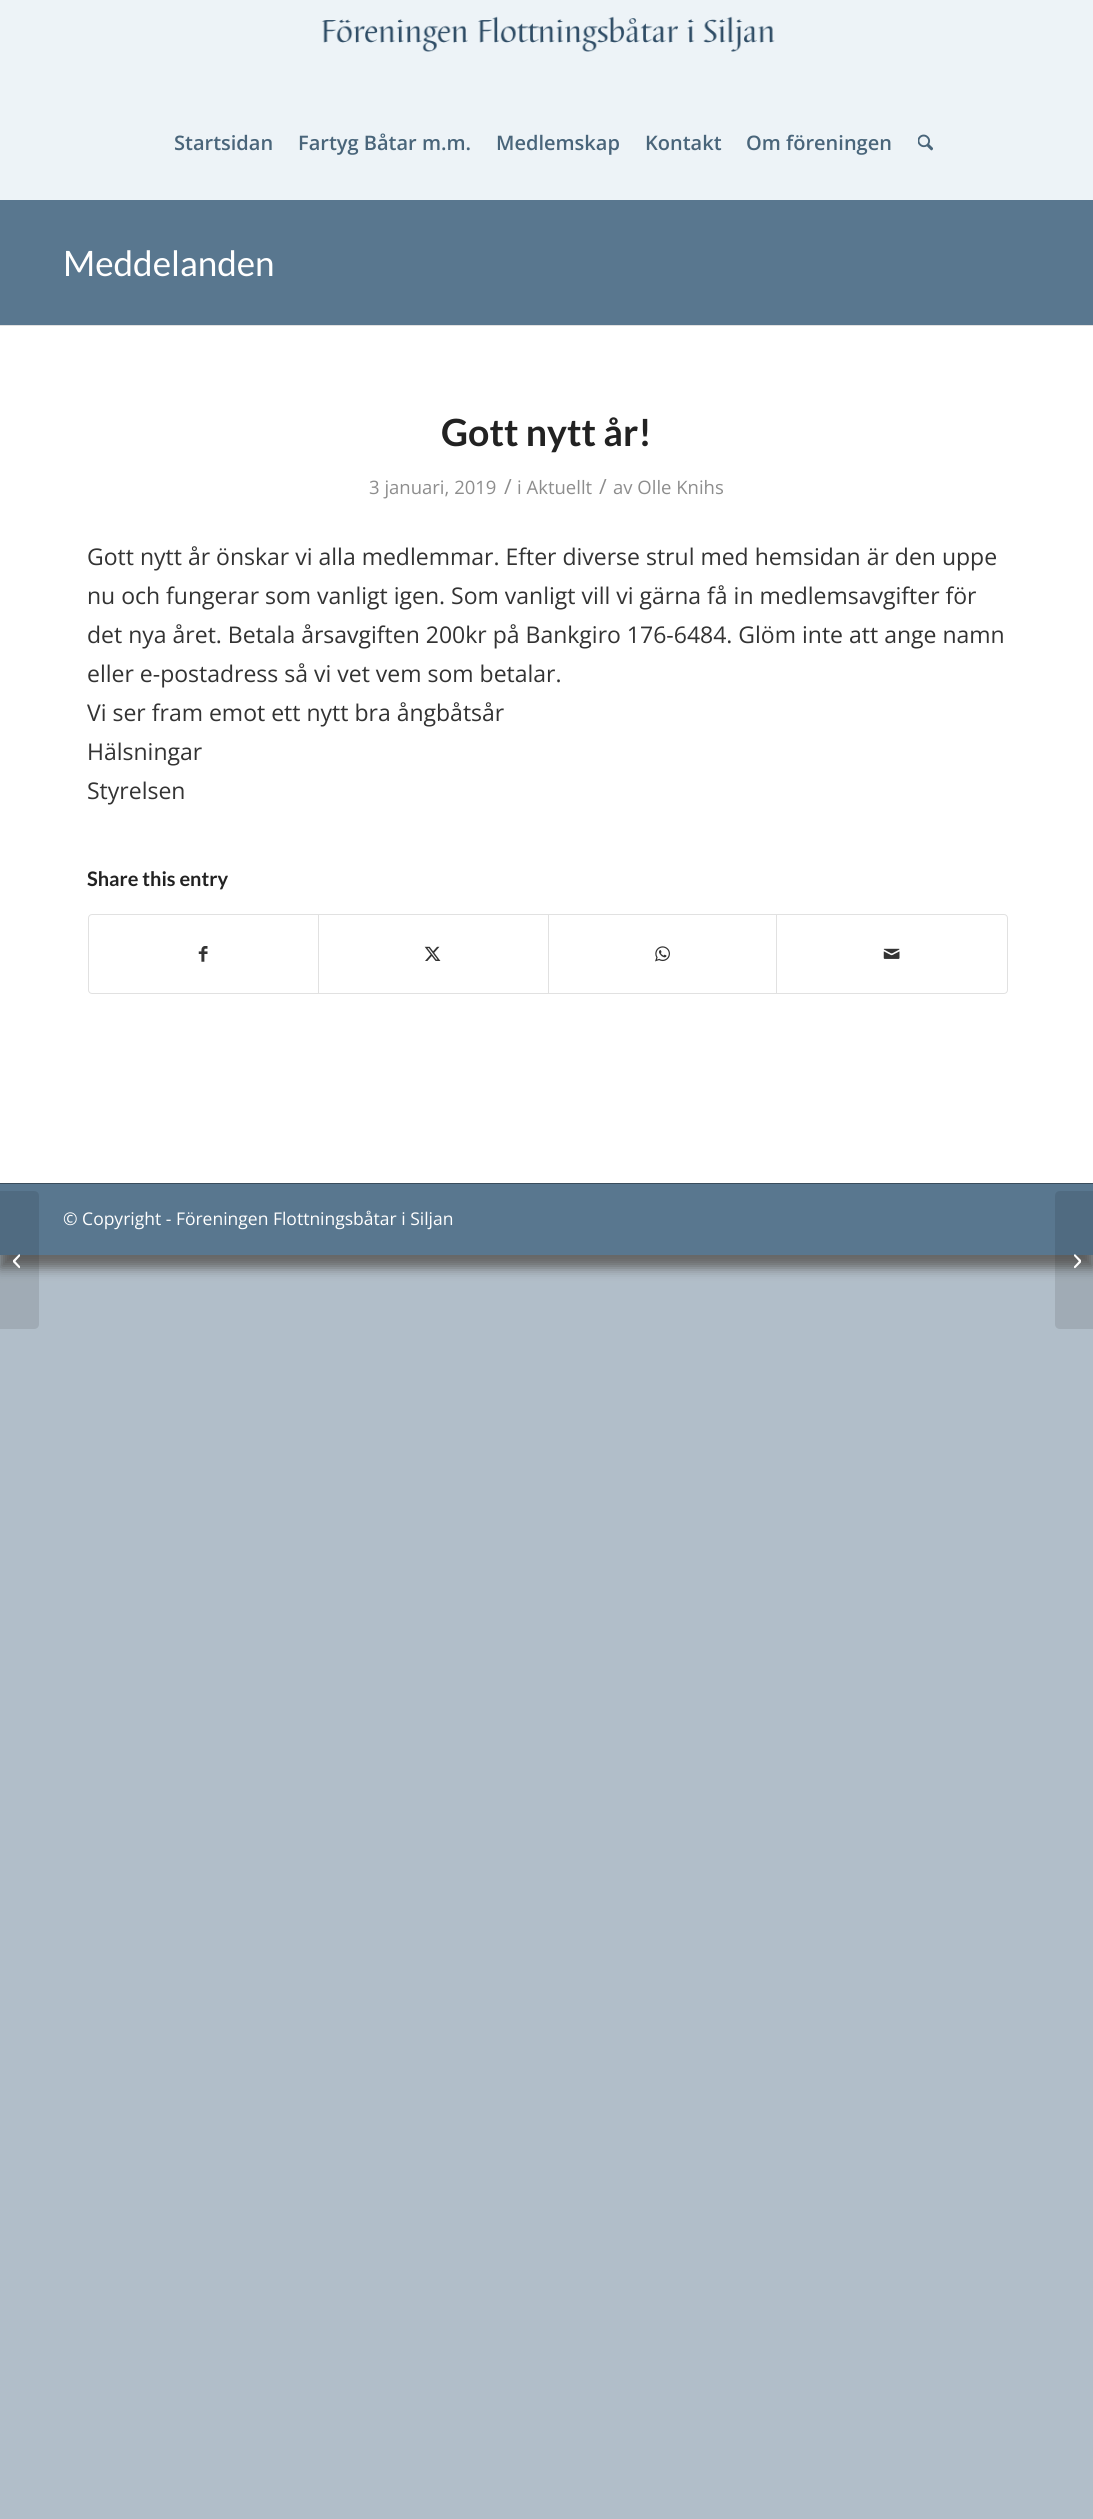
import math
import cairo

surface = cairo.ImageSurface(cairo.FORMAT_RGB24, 1093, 2519)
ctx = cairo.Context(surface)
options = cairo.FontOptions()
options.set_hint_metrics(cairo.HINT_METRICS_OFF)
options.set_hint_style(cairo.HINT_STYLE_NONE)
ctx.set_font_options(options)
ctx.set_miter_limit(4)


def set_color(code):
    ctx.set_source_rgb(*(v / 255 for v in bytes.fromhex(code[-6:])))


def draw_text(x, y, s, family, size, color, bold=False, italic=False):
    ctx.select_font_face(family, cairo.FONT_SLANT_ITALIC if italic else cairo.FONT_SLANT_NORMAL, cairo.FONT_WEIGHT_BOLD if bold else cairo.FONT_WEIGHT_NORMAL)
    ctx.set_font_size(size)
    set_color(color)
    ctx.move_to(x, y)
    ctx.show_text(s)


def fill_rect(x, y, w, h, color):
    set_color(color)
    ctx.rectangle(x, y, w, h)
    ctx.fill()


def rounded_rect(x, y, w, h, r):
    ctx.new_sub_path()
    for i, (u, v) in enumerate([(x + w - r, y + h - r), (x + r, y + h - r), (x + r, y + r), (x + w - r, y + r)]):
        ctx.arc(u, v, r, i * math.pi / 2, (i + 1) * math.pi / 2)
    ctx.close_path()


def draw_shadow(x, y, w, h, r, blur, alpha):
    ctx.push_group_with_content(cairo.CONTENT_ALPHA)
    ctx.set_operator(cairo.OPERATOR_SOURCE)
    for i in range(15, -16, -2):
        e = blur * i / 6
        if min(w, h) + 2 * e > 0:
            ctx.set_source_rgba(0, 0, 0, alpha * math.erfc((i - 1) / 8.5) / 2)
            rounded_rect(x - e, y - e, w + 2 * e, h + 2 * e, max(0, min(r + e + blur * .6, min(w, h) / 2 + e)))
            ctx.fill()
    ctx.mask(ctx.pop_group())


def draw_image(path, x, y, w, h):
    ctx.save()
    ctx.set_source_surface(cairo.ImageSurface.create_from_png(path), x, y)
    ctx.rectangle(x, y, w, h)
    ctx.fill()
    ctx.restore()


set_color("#b1bec9")
ctx.paint()
set_color("#666666")
draw_shadow(0, 13, 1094, 1255, 0, 6, 1)
fill_rect(0, 0, 1093, 200, "#edf3f7")
draw_image("assets/img1.png", 321, 16, 454, 36)
draw_text(174, 150, "Startsidan", "Open Sans SemiBold", 20, "#49657a")
draw_text(298, 150, "Fartyg Båtar m.m.", "Open Sans SemiBold", 20, "#49657a")
draw_text(496, 150, "Medlemskap", "Open Sans SemiBold", 20, "#49657a")
draw_text(645, 150, "Kontakt", "Open Sans SemiBold", 20, "#49657a")
draw_text(746, 150, "Om föreningen", "Open Sans SemiBold", 20, "#49657a")
draw_image("assets/img2.png", 918, 134, 15, 17)
fill_rect(0, 200, 1093, 125, "#59778f")
draw_text(63, 276, "Meddelanden", "Lato", 35, "#ffffff")
fill_rect(0, 326, 1093, 857, "#ffffff")
fill_rect(0, 325, 1093, 1, "#e1e1e1")
draw_text(441, 446, "Gott nytt år!", "Lato", 37.5, "#222222", bold=True)
draw_text(369, 494, "3 januari, 2019", "Open Sans", 18.5, "#8d8d8d")
draw_text(504, 494, "/", "Open Sans", 21, "#8d8d8d")
draw_text(517, 494, "i Aktuellt", "Open Sans", 18.5, "#8d8d8d")
draw_text(599, 494, "/", "Open Sans", 21, "#8d8d8d")
draw_text(613, 494, "av Olle Knihs", "Open Sans", 18.5, "#8d8d8d")
draw_text(87, 565, "Gott nytt år önskar vi alla medlemmar. Efter diverse strul med hemsidan är den uppe", "Open Sans", 23, "#333333")
draw_text(87, 604, "nu och fungerar som vanligt igen. Som vanligt vill vi gärna få in medlemsavgifter för", "Open Sans", 23, "#333333")
draw_text(87, 643, "det nya året. Betala årsavgiften 200kr på Bankgiro 176-6484. Glöm inte att ange namn", "Open Sans", 23, "#333333")
draw_text(87, 682, "eller e-postadress så vi vet vem som betalar.", "Open Sans", 23, "#333333")
draw_text(87, 721, "Vi ser fram emot ett nytt bra ångbåtsår", "Open Sans", 23, "#333333")
draw_text(87, 760, "Hälsningar", "Open Sans", 23, "#333333")
draw_text(87, 799, "Styrelsen", "Open Sans", 23, "#333333")
draw_text(87, 886, "Share this entry", "Lato", 20, "#222222", bold=True)
rounded_rect(88.5, 914.5, 919, 79, 3.5)
set_color("#e1e1e1")
ctx.set_line_width(1)
ctx.stroke()
draw_image("assets/img3.png", 198, 946, 10, 16)
fill_rect(318, 915, 1, 78, "#e1e1e1")
draw_image("assets/img4.png", 424, 946, 17, 15)
fill_rect(548, 915, 1, 78, "#e1e1e1")
draw_image("assets/img5.png", 655, 946, 15, 16)
fill_rect(776, 915, 1, 78, "#e1e1e1")
draw_image("assets/img6.png", 883, 948, 17, 11)
fill_rect(0, 1184, 1093, 71, "#59778f")
fill_rect(0, 1183, 1093, 1, "#3a4d5c")
draw_text(63, 1225, "© Copyright - Föreningen Flottningsbåtar i Siljan", "Open Sans", 17.5, "#ffffff")
ctx.set_source_rgba(0, 0, 0, 0.1)
ctx.new_path()
ctx.move_to(0, 1191)
ctx.line_to(34, 1191)
ctx.curve_to(37, 1191, 39, 1193, 39, 1196)
ctx.line_to(39, 1324)
ctx.curve_to(39, 1327, 37, 1329, 34, 1329)
ctx.line_to(0, 1329)
ctx.close_path()
ctx.fill()
draw_image("assets/img7.png", 13, 1254, 7, 15)
ctx.new_path()
ctx.move_to(1060, 1191)
ctx.line_to(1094, 1191)
ctx.line_to(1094, 1329)
ctx.line_to(1060, 1329)
ctx.curve_to(1057, 1329, 1055, 1327, 1055, 1324)
ctx.line_to(1055, 1196)
ctx.curve_to(1055, 1193, 1057, 1191, 1060, 1191)
ctx.close_path()
ctx.fill()
draw_image("assets/img8.png", 1074, 1254, 7, 15)
surface.write_to_png("output.png")
